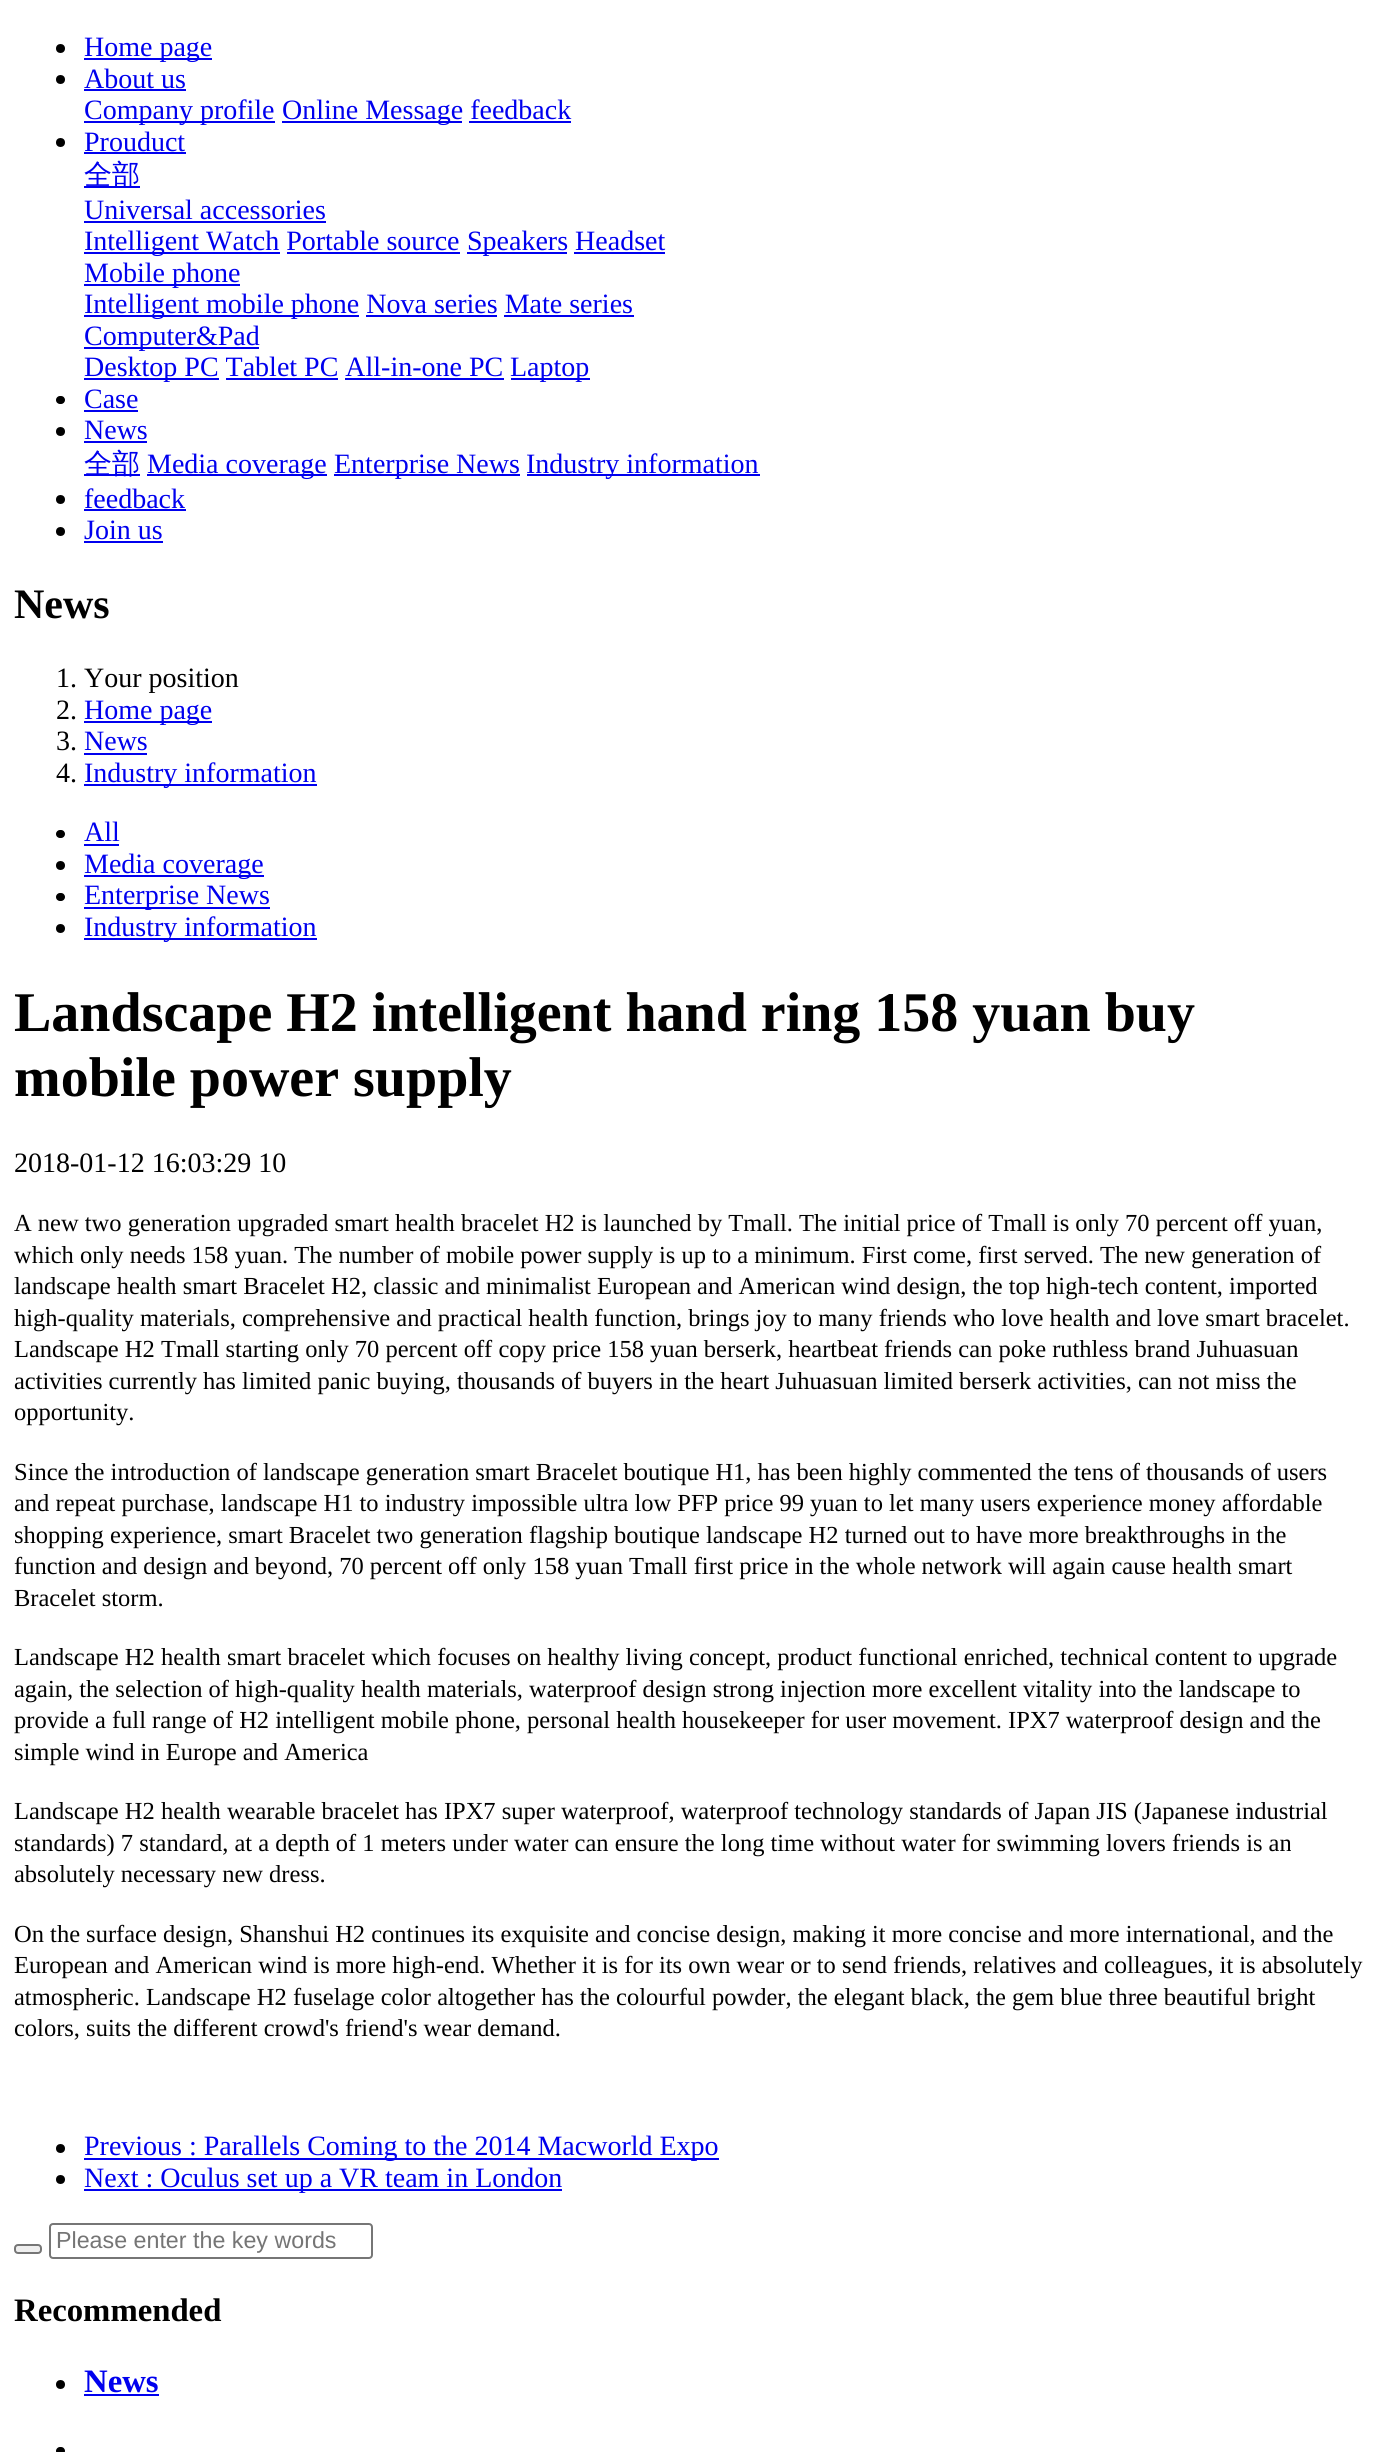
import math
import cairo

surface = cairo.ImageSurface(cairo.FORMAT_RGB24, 1380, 2452)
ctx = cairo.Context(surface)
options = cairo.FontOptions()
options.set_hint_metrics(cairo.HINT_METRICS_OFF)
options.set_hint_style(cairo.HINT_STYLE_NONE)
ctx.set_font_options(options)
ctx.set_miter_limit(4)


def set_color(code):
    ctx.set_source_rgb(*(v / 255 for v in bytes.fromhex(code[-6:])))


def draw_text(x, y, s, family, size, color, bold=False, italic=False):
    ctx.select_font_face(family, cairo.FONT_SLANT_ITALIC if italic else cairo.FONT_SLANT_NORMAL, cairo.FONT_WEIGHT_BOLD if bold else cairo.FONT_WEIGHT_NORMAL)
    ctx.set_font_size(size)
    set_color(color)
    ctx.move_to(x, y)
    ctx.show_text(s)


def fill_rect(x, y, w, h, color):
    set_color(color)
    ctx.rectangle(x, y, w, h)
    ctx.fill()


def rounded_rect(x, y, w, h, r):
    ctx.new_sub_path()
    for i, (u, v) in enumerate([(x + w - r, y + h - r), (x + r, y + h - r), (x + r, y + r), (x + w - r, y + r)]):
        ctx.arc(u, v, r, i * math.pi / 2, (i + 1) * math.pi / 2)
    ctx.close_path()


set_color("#ffffff")
ctx.paint()
set_color("#000000")
ctx.arc(60.5, 48.5, 4.5, 0, 2 * math.pi)
ctx.fill()
fill_rect(84, 58, 128, 2, "#0000ee")
draw_text(84, 56, "Home page", "Liberation Serif", 28, "#0000ee")
set_color("#000000")
ctx.new_path()
ctx.arc(60.5, 79.5, 4.5, 0, 2 * math.pi)
ctx.fill()
draw_text(84, 88, "About us", "Liberation Serif", 28, "#0000ee")
fill_rect(84, 89, 102, 2, "#0000ee")
fill_rect(84, 121, 191, 2, "#0000ee")
draw_text(84, 119, "Company profile", "Liberation Serif", 28, "#0000ee")
fill_rect(282, 121, 180, 2, "#0000ee")
draw_text(282, 119, "Online Message feedback", "Liberation Serif", 28, "#0000ee")
fill_rect(469, 121, 102, 2, "#0000ee")
set_color("#000000")
ctx.new_path()
ctx.arc(60.5, 142.5, 4.5, 0, 2 * math.pi)
ctx.fill()
draw_text(84, 151, "Prouduct", "Liberation Serif", 28, "#0000ee")
fill_rect(84, 152, 102, 2, "#0000ee")
fill_rect(84, 186, 56, 2, "#0000ee")
draw_text(84, 184, "全部", "WenQuanYi Zen Hei Medium", 28, "#0000ee")
draw_text(84, 219, "Universal accessories", "Liberation Serif", 28, "#0000ee")
fill_rect(84, 221, 242, 2, "#0000ee")
fill_rect(84, 252, 196, 2, "#0000ee")
draw_text(84, 250, "Intelligent Watch Portable source", "Liberation Serif", 28, "#0000ee")
fill_rect(467, 252, 100, 2, "#0000ee")
draw_text(467, 250, "Speakers Headset", "Liberation Serif", 28, "#0000ee")
fill_rect(287, 252, 173, 2, "#0000ee")
fill_rect(574, 252, 91, 2, "#0000ee")
fill_rect(84, 284, 156, 2, "#0000ee")
draw_text(84, 282, "Mobile phone", "Liberation Serif", 28, "#0000ee")
fill_rect(84, 315, 275, 2, "#0000ee")
draw_text(84, 313, "Intelligent mobile phone Nova series Mate series", "Liberation Serif", 28, "#0000ee")
fill_rect(366, 315, 131, 2, "#0000ee")
fill_rect(504, 315, 130, 2, "#0000ee")
fill_rect(84, 347, 175, 2, "#0000ee")
draw_text(84, 345, "Computer&Pad", "Liberation Serif", 28, "#0000ee")
fill_rect(84, 378, 135, 2, "#0000ee")
draw_text(84, 376, "Desktop PC Tablet PC All-in-one PC", "Liberation Serif", 28, "#0000ee")
fill_rect(511, 378, 79, 2, "#0000ee")
draw_text(510, 376, "Laptop", "Liberation Serif", 28, "#0000ee")
fill_rect(226, 378, 112, 2, "#0000ee")
fill_rect(345, 378, 159, 2, "#0000ee")
set_color("#000000")
rounded_rect(56, 396, 9, 8, 4)
ctx.fill()
draw_text(84, 408, "Case", "Liberation Serif", 28, "#0000ee")
fill_rect(84, 410, 54, 2, "#0000ee")
set_color("#000000")
ctx.new_path()
ctx.arc(60.5, 431.5, 4.5, 0, 2 * math.pi)
ctx.fill()
draw_text(84, 439, "News", "Liberation Serif", 28, "#0000ee")
fill_rect(84, 441, 63, 2, "#0000ee")
fill_rect(84, 474, 56, 2, "#0000ee")
draw_text(84, 473, "全部", "WenQuanYi Zen Hei Medium", 28, "#0000ee")
fill_rect(147, 474, 180, 2, "#0000ee")
draw_text(147, 473, "Media coverage", "Liberation Serif", 28, "#0000ee")
fill_rect(334, 474, 186, 2, "#0000ee")
draw_text(334, 473, "Enterprise News", "Liberation Serif", 28, "#0000ee")
fill_rect(527, 474, 233, 2, "#0000ee")
draw_text(526, 473, "Industry information", "Liberation Serif", 28, "#0000ee")
set_color("#000000")
ctx.new_path()
ctx.arc(60.5, 499.5, 4.5, 0, 2 * math.pi)
ctx.fill()
draw_text(84, 508, "feedback", "Liberation Serif", 28, "#0000ee")
fill_rect(84, 509, 102, 2, "#0000ee")
set_color("#000000")
ctx.new_path()
ctx.arc(60.5, 531.5, 4.5, 0, 2 * math.pi)
ctx.fill()
draw_text(84, 539, "Join us", "Liberation Serif", 28, "#0000ee")
fill_rect(84, 541, 79, 2, "#0000ee")
draw_text(14, 618, "News", "Liberation Serif", 42, "#000000", bold=True)
draw_text(56, 687, "1. Your position", "Liberation Serif", 28, "#000000")
draw_text(56, 719, "2.", "Liberation Serif", 28, "#000000")
fill_rect(84, 721, 128, 2, "#0000ee")
draw_text(84, 719, "Home page", "Liberation Serif", 28, "#0000ee")
draw_text(56, 750, "3.", "Liberation Serif", 28, "#000000")
draw_text(84, 750, "News", "Liberation Serif", 28, "#0000ee")
fill_rect(84, 753, 63, 2, "#0000ee")
draw_text(56, 782, "4.", "Liberation Serif", 28, "#000000")
fill_rect(84, 784, 233, 2, "#0000ee")
draw_text(84, 782, "Industry information", "Liberation Serif", 28, "#0000ee")
set_color("#000000")
rounded_rect(56, 830, 9, 8, 4)
ctx.fill()
draw_text(84, 841, "All", "Liberation Serif", 28, "#0000ee")
fill_rect(84, 844, 35, 2, "#0000ee")
set_color("#000000")
ctx.new_path()
ctx.arc(60.5, 865.5, 4.5, 0, 2 * math.pi)
ctx.fill()
fill_rect(84, 875, 180, 2, "#0000ee")
draw_text(84, 873, "Media coverage", "Liberation Serif", 28, "#0000ee")
set_color("#000000")
rounded_rect(56, 893, 9, 8, 4)
ctx.fill()
fill_rect(84, 907, 186, 2, "#0000ee")
draw_text(84, 904, "Enterprise News", "Liberation Serif", 28, "#0000ee")
set_color("#000000")
ctx.new_path()
ctx.arc(60.5, 928.5, 4.5, 0, 2 * math.pi)
ctx.fill()
fill_rect(84, 938, 233, 2, "#0000ee")
draw_text(84, 936, "Industry information", "Liberation Serif", 28, "#0000ee")
draw_text(14, 1031, "Landscape H2 intelligent hand ring 158 yuan buy", "Liberation Serif", 56, "#000000", bold=True)
draw_text(14, 1096, "mobile power supply", "Liberation Serif", 56, "#000000", bold=True)
draw_text(14, 1172, "2018-01-12 16:03:29 10", "Liberation Serif", 28, "#000000")
draw_text(14, 1231, "A new two generation upgraded smart health bracelet H2 is launched by Tmall. The initial price of Tmall is only 70 percent off yuan,", "Liberation Serif", 24.5, "#000000")
draw_text(14, 1263, "which only needs 158 yuan. The number of mobile power supply is up to a minimum. First come, first served. The new generation of", "Liberation Serif", 24.5, "#000000")
draw_text(14, 1294, "landscape health smart Bracelet H2, classic and minimalist European and American wind design, the top high-tech content, imported", "Liberation Serif", 24.5, "#000000")
draw_text(14, 1326, "high-quality materials, comprehensive and practical health function, brings joy to many friends who love health and love smart bracelet.", "Liberation Serif", 24.5, "#000000")
draw_text(14, 1357, "Landscape H2 Tmall starting only 70 percent off copy price 158 yuan berserk, heartbeat friends can poke ruthless brand Juhuasuan", "Liberation Serif", 24.5, "#000000")
draw_text(14, 1389, "activities currently has limited panic buying, thousands of buyers in the heart Juhuasuan limited berserk activities, can not miss the", "Liberation Serif", 24.5, "#000000")
draw_text(14, 1420, "opportunity.", "Liberation Serif", 24.5, "#000000")
draw_text(14, 1480, "Since the introduction of landscape generation smart Bracelet boutique H1, has been highly commented the tens of thousands of users", "Liberation Serif", 24.5, "#000000")
draw_text(14, 1511, "and repeat purchase, landscape H1 to industry impossible ultra low PFP price 99 yuan to let many users experience money affordable", "Liberation Serif", 24.5, "#000000")
draw_text(14, 1543, "shopping experience, smart Bracelet two generation flagship boutique landscape H2 turned out to have more breakthroughs in the", "Liberation Serif", 24.5, "#000000")
draw_text(14, 1574, "function and design and beyond, 70 percent off only 158 yuan Tmall first price in the whole network will again cause health smart", "Liberation Serif", 24.5, "#000000")
draw_text(14, 1606, "Bracelet storm.", "Liberation Serif", 24.5, "#000000")
draw_text(14, 1665, "Landscape H2 health smart bracelet which focuses on healthy living concept, product functional enriched, technical content to upgrade", "Liberation Serif", 24.5, "#000000")
draw_text(14, 1697, "again, the selection of high-quality health materials, waterproof design strong injection more excellent vitality into the landscape to", "Liberation Serif", 24.5, "#000000")
draw_text(14, 1728, "provide a full range of H2 intelligent mobile phone, personal health housekeeper for user movement. IPX7 waterproof design and the", "Liberation Serif", 24.5, "#000000")
draw_text(14, 1760, "simple wind in Europe and America", "Liberation Serif", 24.5, "#000000")
draw_text(14, 1819, "Landscape H2 health wearable bracelet has IPX7 super waterproof, waterproof technology standards of Japan JIS (Japanese industrial", "Liberation Serif", 24.5, "#000000")
draw_text(14, 1851, "standards) 7 standard, at a depth of 1 meters under water can ensure the long time without water for swimming lovers friends is an", "Liberation Serif", 24.5, "#000000")
draw_text(14, 1882, "absolutely necessary new dress.", "Liberation Serif", 24.5, "#000000")
draw_text(14, 1942, "On the surface design, Shanshui H2 continues its exquisite and concise design, making it more concise and more international, and the", "Liberation Serif", 24.5, "#000000")
draw_text(14, 1973, "European and American wind is more high-end. Whether it is for its own wear or to send friends, relatives and colleagues, it is absolutely", "Liberation Serif", 24.5, "#000000")
draw_text(14, 2005, "atmospheric. Landscape H2 fuselage color altogether has the colourful powder, the elegant black, the gem blue three beautiful bright", "Liberation Serif", 24.5, "#000000")
draw_text(14, 2036, "colors, suits the different crowd's friend's wear demand.", "Liberation Serif", 24.5, "#000000")
ctx.new_path()
ctx.arc(60.5, 2148.5, 4.5, 0, 2 * math.pi)
ctx.fill()
fill_rect(84, 2158, 635, 2, "#0000ee")
draw_text(84, 2155, "Previous : Parallels Coming to the 2014 Macworld Expo", "Liberation Serif", 28, "#0000ee")
set_color("#000000")
ctx.new_path()
ctx.arc(60.5, 2179.5, 4.5, 0, 2 * math.pi)
ctx.fill()
fill_rect(84, 2189, 478, 2, "#0000ee")
draw_text(84, 2187, "Next : Oculus set up a VR team in London", "Liberation Serif", 28, "#0000ee")
set_color("#efefef")
rounded_rect(15, 2245, 26, 8, 3)
ctx.fill_preserve()
set_color("#767676")
ctx.stroke()
rounded_rect(50, 2224, 322, 34, 3)
ctx.stroke()
draw_text(56, 2248, "Please enter the key words", "Liberation Sans", 23.25, "#757575")
draw_text(14, 2321, "Recommended", "Liberation Serif", 32.75, "#000000", bold=True)
ctx.new_path()
ctx.arc(60.5, 2384.5, 4.5, 0, 2 * math.pi)
ctx.fill()
draw_text(84, 2392, "News", "Liberation Serif", 32.75, "#0000ee", bold=True)
fill_rect(84, 2394, 75, 2, "#0000ee")
set_color("#000000")
rounded_rect(56, 2447, 9, 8, 4)
ctx.fill()
surface.write_to_png("output.png")
